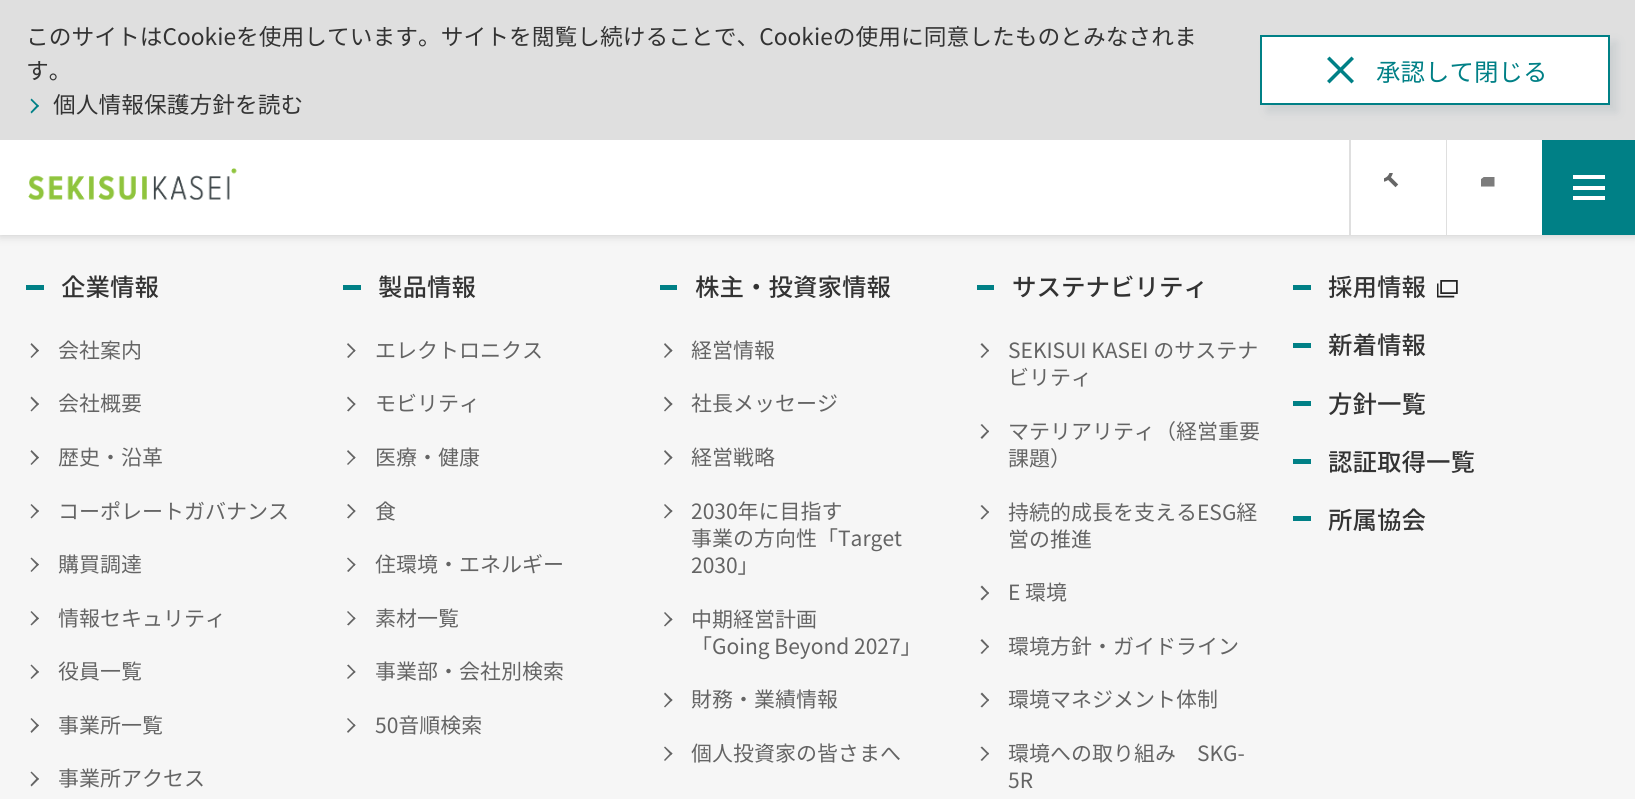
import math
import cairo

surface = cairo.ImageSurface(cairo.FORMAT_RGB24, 1635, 799)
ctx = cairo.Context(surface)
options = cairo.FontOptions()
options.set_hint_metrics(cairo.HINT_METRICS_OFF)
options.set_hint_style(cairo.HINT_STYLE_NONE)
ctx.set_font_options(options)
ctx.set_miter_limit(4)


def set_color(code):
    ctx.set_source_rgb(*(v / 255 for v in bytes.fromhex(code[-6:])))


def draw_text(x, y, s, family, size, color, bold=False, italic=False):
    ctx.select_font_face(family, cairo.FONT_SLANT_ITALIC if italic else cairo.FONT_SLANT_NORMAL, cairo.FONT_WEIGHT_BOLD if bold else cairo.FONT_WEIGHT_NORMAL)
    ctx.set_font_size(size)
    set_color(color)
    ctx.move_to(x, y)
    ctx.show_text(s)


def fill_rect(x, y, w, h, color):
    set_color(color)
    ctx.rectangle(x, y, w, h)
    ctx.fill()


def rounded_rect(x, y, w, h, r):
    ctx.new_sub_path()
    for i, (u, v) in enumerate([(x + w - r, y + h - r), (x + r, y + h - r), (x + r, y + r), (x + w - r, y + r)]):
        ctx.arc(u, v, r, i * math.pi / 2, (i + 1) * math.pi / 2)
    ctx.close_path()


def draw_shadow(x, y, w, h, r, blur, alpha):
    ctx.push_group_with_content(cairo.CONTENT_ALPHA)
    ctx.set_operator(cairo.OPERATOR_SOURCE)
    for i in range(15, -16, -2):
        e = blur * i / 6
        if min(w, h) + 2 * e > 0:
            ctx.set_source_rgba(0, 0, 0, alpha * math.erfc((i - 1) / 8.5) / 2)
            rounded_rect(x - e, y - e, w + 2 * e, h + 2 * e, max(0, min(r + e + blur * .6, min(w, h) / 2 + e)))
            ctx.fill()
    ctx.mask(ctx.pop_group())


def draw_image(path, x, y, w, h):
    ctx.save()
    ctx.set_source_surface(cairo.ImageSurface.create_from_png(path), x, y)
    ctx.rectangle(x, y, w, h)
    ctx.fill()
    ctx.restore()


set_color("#f6f6f6")
ctx.paint()
set_color("#000000")
draw_shadow(0, 140, 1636, 95, 0, 5, 0.2)
fill_rect(0, 0, 1635, 140, "#dfdfdf")
draw_text(26, 45, "このサイトはCookieを使用しています。サイトを閲覧し続けることで、Cookieの使用に同意したものとみなされま", "Noto Sans JP", 22.75, "#333333")
draw_text(26, 79, "す。", "Noto Sans JP", 22.75, "#333333")
set_color("#008086")
ctx.new_path()
ctx.move_to(31.5, 98.5)
ctx.line_to(39, 106)
ctx.line_to(37.5, 107)
ctx.line_to(30.5, 100)
ctx.close_path()
ctx.fill()
ctx.new_path()
ctx.move_to(37.5, 104.5)
ctx.line_to(39, 106)
ctx.line_to(31.5, 113.5)
ctx.line_to(30.5, 112)
ctx.close_path()
ctx.fill()
draw_text(53, 113, "個人情報保護方針を読む", "Noto Sans JP", 22.75, "#333333")
set_color("#36586a")
draw_shadow(1267, 42, 350, 70, 0, 5, 0.12)
set_color("#ffffff")
ctx.rectangle(1261, 36, 348, 68)
ctx.fill_preserve()
set_color("#008086")
ctx.stroke()
ctx.new_path()
ctx.move_to(1329.5, 56.5)
ctx.line_to(1354, 81)
ctx.line_to(1351.5, 83.5)
ctx.line_to(1327, 59)
ctx.close_path()
ctx.fill()
ctx.new_path()
ctx.move_to(1327, 81)
ctx.line_to(1351.5, 56.5)
ctx.line_to(1354, 59)
ctx.line_to(1329.5, 83.5)
ctx.close_path()
ctx.fill()
draw_text(1376, 81, "承認して閉じる", "Noto Sans JP", 24.5, "#008086")
fill_rect(0, 140, 1446, 95, "#ffffff")
draw_image("assets/img1.png", 28, 168, 209, 32)
fill_rect(1349, 140, 2, 95, "#dfdfdf")
draw_image("assets/img2.png", 1384, 173, 15, 15)
fill_rect(1446, 140, 1, 95, "#dfdfdf")
fill_rect(1447, 140, 95, 95, "#ffffff")
ctx.save()
ctx.rectangle(1481, 177, 28, 22)
ctx.clip()
set_color("#7c7c7c")
ctx.set_fill_rule(cairo.FILL_RULE_EVEN_ODD)
ctx.new_path()
ctx.move_to(1480.5, 176.5)
ctx.line_to(1466.5, 165.5)
ctx.line_to(1494.5, 165.5)
ctx.close_path()
ctx.move_to(1480.5, 179.5)
ctx.line_to(1466.5, 168.5)
ctx.line_to(1466.5, 186.5)
ctx.line_to(1494.5, 186.5)
ctx.line_to(1494.5, 168.5)
ctx.close_path()
ctx.fill()
ctx.restore()
fill_rect(1542, 140, 93, 95, "#008086")
fill_rect(1573, 175, 32, 4, "#ffffff")
fill_rect(1573, 186, 32, 4, "#ffffff")
fill_rect(1573, 196, 32, 4, "#ffffff")
fill_rect(26, 285, 18, 5, "#008086")
draw_text(61, 296, "企業情報", "Noto Sans JP Medium", 24.5, "#333333")
set_color("#646464")
ctx.new_path()
ctx.move_to(31.5, 343)
ctx.line_to(39, 350.5)
ctx.line_to(37.5, 352)
ctx.line_to(30.5, 344.5)
ctx.close_path()
ctx.fill()
ctx.new_path()
ctx.move_to(37.5, 349.5)
ctx.line_to(39, 350.5)
ctx.line_to(31.5, 358)
ctx.line_to(30.5, 357)
ctx.close_path()
ctx.fill()
draw_text(58, 358, "会社案内", "Noto Sans JP", 21, "#646464")
ctx.new_path()
ctx.move_to(31.5, 396.5)
ctx.line_to(39, 404)
ctx.line_to(37.5, 405.5)
ctx.line_to(30.5, 398)
ctx.close_path()
ctx.fill()
ctx.new_path()
ctx.move_to(37.5, 403)
ctx.line_to(39, 404)
ctx.line_to(31.5, 411.5)
ctx.line_to(30.5, 410.5)
ctx.close_path()
ctx.fill()
draw_text(58, 411, "会社概要", "Noto Sans JP", 21, "#646464")
ctx.new_path()
ctx.move_to(31.5, 450)
ctx.line_to(39, 457.5)
ctx.line_to(37.5, 459)
ctx.line_to(30.5, 451.5)
ctx.close_path()
ctx.fill()
ctx.new_path()
ctx.move_to(37.5, 456.5)
ctx.line_to(39, 457.5)
ctx.line_to(31.5, 465)
ctx.line_to(30.5, 464)
ctx.close_path()
ctx.fill()
draw_text(58, 465, "歴史・沿革", "Noto Sans JP", 21, "#646464")
ctx.new_path()
ctx.move_to(31.5, 504)
ctx.line_to(39, 511)
ctx.line_to(37.5, 512.5)
ctx.line_to(30.5, 505)
ctx.close_path()
ctx.fill()
ctx.new_path()
ctx.move_to(37.5, 510)
ctx.line_to(39, 511)
ctx.line_to(31.5, 518.5)
ctx.line_to(30.5, 517.5)
ctx.close_path()
ctx.fill()
draw_text(58, 519, "コーポレートガバナンス", "Noto Sans JP", 21, "#646464")
ctx.new_path()
ctx.move_to(31.5, 557.5)
ctx.line_to(39, 564.5)
ctx.line_to(37.5, 566)
ctx.line_to(30.5, 558.5)
ctx.close_path()
ctx.fill()
ctx.new_path()
ctx.move_to(37.5, 563.5)
ctx.line_to(39, 564.5)
ctx.line_to(31.5, 572)
ctx.line_to(30.5, 571)
ctx.close_path()
ctx.fill()
draw_text(58, 572, "購買調達", "Noto Sans JP", 21, "#646464")
ctx.new_path()
ctx.move_to(31.5, 611)
ctx.line_to(39, 618.5)
ctx.line_to(37.5, 619.5)
ctx.line_to(30.5, 612)
ctx.close_path()
ctx.fill()
ctx.new_path()
ctx.move_to(37.5, 617)
ctx.line_to(39, 618.5)
ctx.line_to(31.5, 625.5)
ctx.line_to(30.5, 624.5)
ctx.close_path()
ctx.fill()
draw_text(58, 626, "情報セキュリティ", "Noto Sans JP", 21, "#646464")
ctx.new_path()
ctx.move_to(31.5, 664.5)
ctx.line_to(39, 672)
ctx.line_to(37.5, 673)
ctx.line_to(30.5, 665.5)
ctx.close_path()
ctx.fill()
ctx.new_path()
ctx.move_to(37.5, 670.5)
ctx.line_to(39, 672)
ctx.line_to(31.5, 679)
ctx.line_to(30.5, 678)
ctx.close_path()
ctx.fill()
draw_text(58, 679, "役員一覧", "Noto Sans JP", 21, "#646464")
ctx.new_path()
ctx.move_to(31.5, 718)
ctx.line_to(39, 725.5)
ctx.line_to(37.5, 726.5)
ctx.line_to(30.5, 719)
ctx.close_path()
ctx.fill()
ctx.new_path()
ctx.move_to(37.5, 724)
ctx.line_to(39, 725.5)
ctx.line_to(31.5, 733)
ctx.line_to(30.5, 731.5)
ctx.close_path()
ctx.fill()
draw_text(58, 733, "事業所一覧", "Noto Sans JP", 21, "#646464")
ctx.new_path()
ctx.move_to(31.5, 771.5)
ctx.line_to(39, 779)
ctx.line_to(37.5, 780)
ctx.line_to(30.5, 772.5)
ctx.close_path()
ctx.fill()
ctx.new_path()
ctx.move_to(37.5, 777.5)
ctx.line_to(39, 779)
ctx.line_to(31.5, 786.5)
ctx.line_to(30.5, 785)
ctx.close_path()
ctx.fill()
draw_text(58, 786, "事業所アクセス", "Noto Sans JP", 21, "#646464")
fill_rect(343, 285, 18, 5, "#008086")
draw_text(378, 296, "製品情報", "Noto Sans JP Medium", 24.5, "#333333")
set_color("#646464")
ctx.new_path()
ctx.move_to(348, 343)
ctx.line_to(355.5, 350.5)
ctx.line_to(354.5, 352)
ctx.line_to(347, 344.5)
ctx.close_path()
ctx.fill()
ctx.new_path()
ctx.move_to(354.5, 349.5)
ctx.line_to(355.5, 350.5)
ctx.line_to(348.5, 358)
ctx.line_to(347, 357)
ctx.close_path()
ctx.fill()
draw_text(375, 358, "エレクトロニクス", "Noto Sans JP", 21, "#646464")
ctx.new_path()
ctx.move_to(348, 396.5)
ctx.line_to(355.5, 404)
ctx.line_to(354.5, 405.5)
ctx.line_to(347, 398)
ctx.close_path()
ctx.fill()
ctx.new_path()
ctx.move_to(354.5, 403)
ctx.line_to(355.5, 404)
ctx.line_to(348.5, 411.5)
ctx.line_to(347, 410.5)
ctx.close_path()
ctx.fill()
draw_text(375, 411, "モビリティ", "Noto Sans JP", 21, "#646464")
ctx.new_path()
ctx.move_to(348, 450)
ctx.line_to(355.5, 457.5)
ctx.line_to(354.5, 459)
ctx.line_to(347, 451.5)
ctx.close_path()
ctx.fill()
ctx.new_path()
ctx.move_to(354.5, 456.5)
ctx.line_to(355.5, 457.5)
ctx.line_to(348, 465)
ctx.line_to(347, 464)
ctx.close_path()
ctx.fill()
draw_text(375, 465, "医療・健康", "Noto Sans JP", 21, "#646464")
ctx.new_path()
ctx.move_to(348.5, 504)
ctx.line_to(355.5, 511)
ctx.line_to(354.5, 512.5)
ctx.line_to(347, 505)
ctx.close_path()
ctx.fill()
ctx.new_path()
ctx.move_to(354.5, 510)
ctx.line_to(355.5, 511)
ctx.line_to(348.5, 518.5)
ctx.line_to(347, 517.5)
ctx.close_path()
ctx.fill()
draw_text(375, 519, "食", "Noto Sans JP", 21, "#646464")
ctx.new_path()
ctx.move_to(348, 557.5)
ctx.line_to(355.5, 564.5)
ctx.line_to(354.5, 566)
ctx.line_to(347, 558.5)
ctx.close_path()
ctx.fill()
ctx.new_path()
ctx.move_to(354.5, 563.5)
ctx.line_to(355.5, 564.5)
ctx.line_to(348.5, 572)
ctx.line_to(347, 571)
ctx.close_path()
ctx.fill()
draw_text(375, 572, "住環境・エネルギー", "Noto Sans JP", 21, "#646464")
ctx.new_path()
ctx.move_to(348, 611)
ctx.line_to(355.5, 618.5)
ctx.line_to(354.5, 619.5)
ctx.line_to(347, 612)
ctx.close_path()
ctx.fill()
ctx.new_path()
ctx.move_to(354.5, 617)
ctx.line_to(355.5, 618.5)
ctx.line_to(348.5, 625.5)
ctx.line_to(347, 624.5)
ctx.close_path()
ctx.fill()
draw_text(375, 626, "素材一覧", "Noto Sans JP", 21, "#646464")
ctx.new_path()
ctx.move_to(348.5, 664.5)
ctx.line_to(355.5, 672)
ctx.line_to(354.5, 673)
ctx.line_to(347, 665.5)
ctx.close_path()
ctx.fill()
ctx.new_path()
ctx.move_to(354.5, 670.5)
ctx.line_to(355.5, 672)
ctx.line_to(348, 679)
ctx.line_to(347, 678)
ctx.close_path()
ctx.fill()
draw_text(375, 679, "事業部・会社別検索", "Noto Sans JP", 21, "#646464")
ctx.new_path()
ctx.move_to(348, 718)
ctx.line_to(355.5, 725.5)
ctx.line_to(354.5, 726.5)
ctx.line_to(347, 719)
ctx.close_path()
ctx.fill()
ctx.new_path()
ctx.move_to(354.5, 724)
ctx.line_to(355.5, 725.5)
ctx.line_to(348, 733)
ctx.line_to(347, 731.5)
ctx.close_path()
ctx.fill()
draw_text(375, 733, "50音順検索", "Noto Sans JP", 21, "#646464")
fill_rect(660, 285, 17, 5, "#008086")
draw_text(695, 296, "株主・投資家情報", "Noto Sans JP Medium", 24.5, "#333333")
set_color("#646464")
ctx.new_path()
ctx.move_to(665, 343)
ctx.line_to(672.5, 350.5)
ctx.line_to(671, 352)
ctx.line_to(664, 344.5)
ctx.close_path()
ctx.fill()
ctx.new_path()
ctx.move_to(671, 349.5)
ctx.line_to(672.5, 350.5)
ctx.line_to(665, 358)
ctx.line_to(664, 357)
ctx.close_path()
ctx.fill()
draw_text(691, 358, "経営情報", "Noto Sans JP", 21, "#646464")
ctx.new_path()
ctx.move_to(665, 396.5)
ctx.line_to(672.5, 404)
ctx.line_to(671, 405.5)
ctx.line_to(664, 398)
ctx.close_path()
ctx.fill()
ctx.new_path()
ctx.move_to(671, 403)
ctx.line_to(672.5, 404)
ctx.line_to(665, 411.5)
ctx.line_to(664, 410.5)
ctx.close_path()
ctx.fill()
draw_text(691, 411, "社長メッセージ", "Noto Sans JP", 21, "#646464")
ctx.new_path()
ctx.move_to(665, 450)
ctx.line_to(672.5, 457.5)
ctx.line_to(671, 459)
ctx.line_to(664, 451.5)
ctx.close_path()
ctx.fill()
ctx.new_path()
ctx.move_to(671, 456.5)
ctx.line_to(672.5, 457.5)
ctx.line_to(665, 465)
ctx.line_to(664, 464)
ctx.close_path()
ctx.fill()
draw_text(691, 465, "経営戦略", "Noto Sans JP", 21, "#646464")
ctx.new_path()
ctx.move_to(665, 504)
ctx.line_to(672.5, 511)
ctx.line_to(671, 512.5)
ctx.line_to(664, 505)
ctx.close_path()
ctx.fill()
ctx.new_path()
ctx.move_to(671, 510)
ctx.line_to(672.5, 511)
ctx.line_to(665, 518.5)
ctx.line_to(664, 517.5)
ctx.close_path()
ctx.fill()
draw_text(691, 519, "2030年に目指す", "Noto Sans JP", 21, "#646464")
draw_text(691, 546, "事業の方向性「Target", "Noto Sans JP", 21, "#646464")
draw_text(691, 573, "2030」", "Noto Sans JP", 21, "#646464")
ctx.new_path()
ctx.move_to(665, 612)
ctx.line_to(672.5, 619.5)
ctx.line_to(671, 620.5)
ctx.line_to(664, 613)
ctx.close_path()
ctx.fill()
ctx.new_path()
ctx.move_to(671, 618)
ctx.line_to(672.5, 619.5)
ctx.line_to(665, 626.5)
ctx.line_to(664, 625.5)
ctx.close_path()
ctx.fill()
draw_text(691, 627, "中期経営計画", "Noto Sans JP", 21, "#646464")
draw_text(691, 654, "「Going Beyond 2027」", "Noto Sans JP", 21, "#646464")
ctx.new_path()
ctx.move_to(665, 692.5)
ctx.line_to(672.5, 700)
ctx.line_to(671, 701.5)
ctx.line_to(664, 694)
ctx.close_path()
ctx.fill()
ctx.new_path()
ctx.move_to(671, 699)
ctx.line_to(672.5, 700)
ctx.line_to(665, 707.5)
ctx.line_to(664, 706.5)
ctx.close_path()
ctx.fill()
draw_text(691, 707, "財務・業績情報", "Noto Sans JP", 21, "#646464")
ctx.new_path()
ctx.move_to(665, 746.5)
ctx.line_to(672.5, 753.5)
ctx.line_to(671, 755)
ctx.line_to(664, 747.5)
ctx.close_path()
ctx.fill()
ctx.new_path()
ctx.move_to(671, 752.5)
ctx.line_to(672.5, 753.5)
ctx.line_to(665, 761)
ctx.line_to(664, 760)
ctx.close_path()
ctx.fill()
draw_text(691, 761, "個人投資家の皆さまへ", "Noto Sans JP", 21, "#646464")
fill_rect(977, 285, 17, 5, "#008086")
draw_text(1012, 296, "サステナビリティ", "Noto Sans JP Medium", 24.5, "#333333")
set_color("#646464")
ctx.new_path()
ctx.move_to(982, 343)
ctx.line_to(989, 350.5)
ctx.line_to(988, 352)
ctx.line_to(980.5, 344.5)
ctx.close_path()
ctx.fill()
ctx.new_path()
ctx.move_to(988, 349.5)
ctx.line_to(989, 350.5)
ctx.line_to(982, 358)
ctx.line_to(980.5, 357)
ctx.close_path()
ctx.fill()
draw_text(1008, 358, "SEKISUI KASEI のサステナ", "Noto Sans JP", 21, "#646464")
draw_text(1008, 385, "ビリティ", "Noto Sans JP", 21, "#646464")
ctx.new_path()
ctx.move_to(982, 424)
ctx.line_to(989, 431.5)
ctx.line_to(988, 432.5)
ctx.line_to(980.5, 425)
ctx.close_path()
ctx.fill()
ctx.new_path()
ctx.move_to(988, 430)
ctx.line_to(989, 431.5)
ctx.line_to(982, 439)
ctx.line_to(980.5, 437.5)
ctx.close_path()
ctx.fill()
draw_text(1008, 439, "マテリアリティ（経営重要", "Noto Sans JP", 21, "#646464")
draw_text(1008, 466, "課題）", "Noto Sans JP", 21, "#646464")
ctx.new_path()
ctx.move_to(982, 505)
ctx.line_to(989, 512)
ctx.line_to(988, 513.5)
ctx.line_to(980.5, 506)
ctx.close_path()
ctx.fill()
ctx.new_path()
ctx.move_to(988, 511)
ctx.line_to(989, 512)
ctx.line_to(982, 519.5)
ctx.line_to(980.5, 518.5)
ctx.close_path()
ctx.fill()
draw_text(1008, 520, "持続的成長を支えるESG経", "Noto Sans JP", 21, "#646464")
draw_text(1008, 547, "営の推進", "Noto Sans JP", 21, "#646464")
ctx.new_path()
ctx.move_to(982, 585.5)
ctx.line_to(989, 593)
ctx.line_to(988, 594.5)
ctx.line_to(980.5, 587)
ctx.close_path()
ctx.fill()
ctx.new_path()
ctx.move_to(988, 592)
ctx.line_to(989, 593)
ctx.line_to(982, 600.5)
ctx.line_to(980.5, 599)
ctx.close_path()
ctx.fill()
draw_text(1008, 600, "E 環境", "Noto Sans JP", 21, "#646464")
ctx.new_path()
ctx.move_to(982, 639)
ctx.line_to(989, 646.5)
ctx.line_to(988, 648)
ctx.line_to(980.5, 640.5)
ctx.close_path()
ctx.fill()
ctx.new_path()
ctx.move_to(988, 645.5)
ctx.line_to(989, 646.5)
ctx.line_to(982, 654)
ctx.line_to(980.5, 653)
ctx.close_path()
ctx.fill()
draw_text(1008, 654, "環境方針・ガイドライン", "Noto Sans JP", 21, "#646464")
ctx.new_path()
ctx.move_to(982, 692.5)
ctx.line_to(989, 700)
ctx.line_to(988, 701.5)
ctx.line_to(980.5, 694)
ctx.close_path()
ctx.fill()
ctx.new_path()
ctx.move_to(988, 699)
ctx.line_to(989, 700)
ctx.line_to(982, 707.5)
ctx.line_to(980.5, 706.5)
ctx.close_path()
ctx.fill()
draw_text(1008, 707, "環境マネジメント体制", "Noto Sans JP", 21, "#646464")
ctx.new_path()
ctx.move_to(982, 746.5)
ctx.line_to(989, 753.5)
ctx.line_to(988, 755)
ctx.line_to(980.5, 747.5)
ctx.close_path()
ctx.fill()
ctx.new_path()
ctx.move_to(988, 752.5)
ctx.line_to(989, 753.5)
ctx.line_to(982, 761)
ctx.line_to(980.5, 760)
ctx.close_path()
ctx.fill()
draw_text(1008, 761, "環境への取り組み　SKG-", "Noto Sans JP", 21, "#646464")
draw_text(1008, 788, "5R", "Noto Sans JP", 21, "#646464")
fill_rect(1293, 285, 18, 5, "#008086")
draw_text(1328, 296, "採用情報", "Noto Sans JP Medium", 24.5, "#333333")
draw_image("assets/img3.png", 1437, 280, 21, 18)
fill_rect(1293, 343, 18, 5, "#008086")
draw_text(1328, 354, "新着情報", "Noto Sans JP Medium", 24.5, "#333333")
fill_rect(1293, 401, 18, 5, "#008086")
draw_text(1328, 413, "方針一覧", "Noto Sans JP Medium", 24.5, "#333333")
fill_rect(1293, 459, 18, 5, "#008086")
draw_text(1328, 471, "認証取得一覧", "Noto Sans JP Medium", 24.5, "#333333")
fill_rect(1293, 516, 18, 5, "#008086")
draw_text(1328, 529, "所属協会", "Noto Sans JP Medium", 24.5, "#333333")
surface.write_to_png("output.png")
